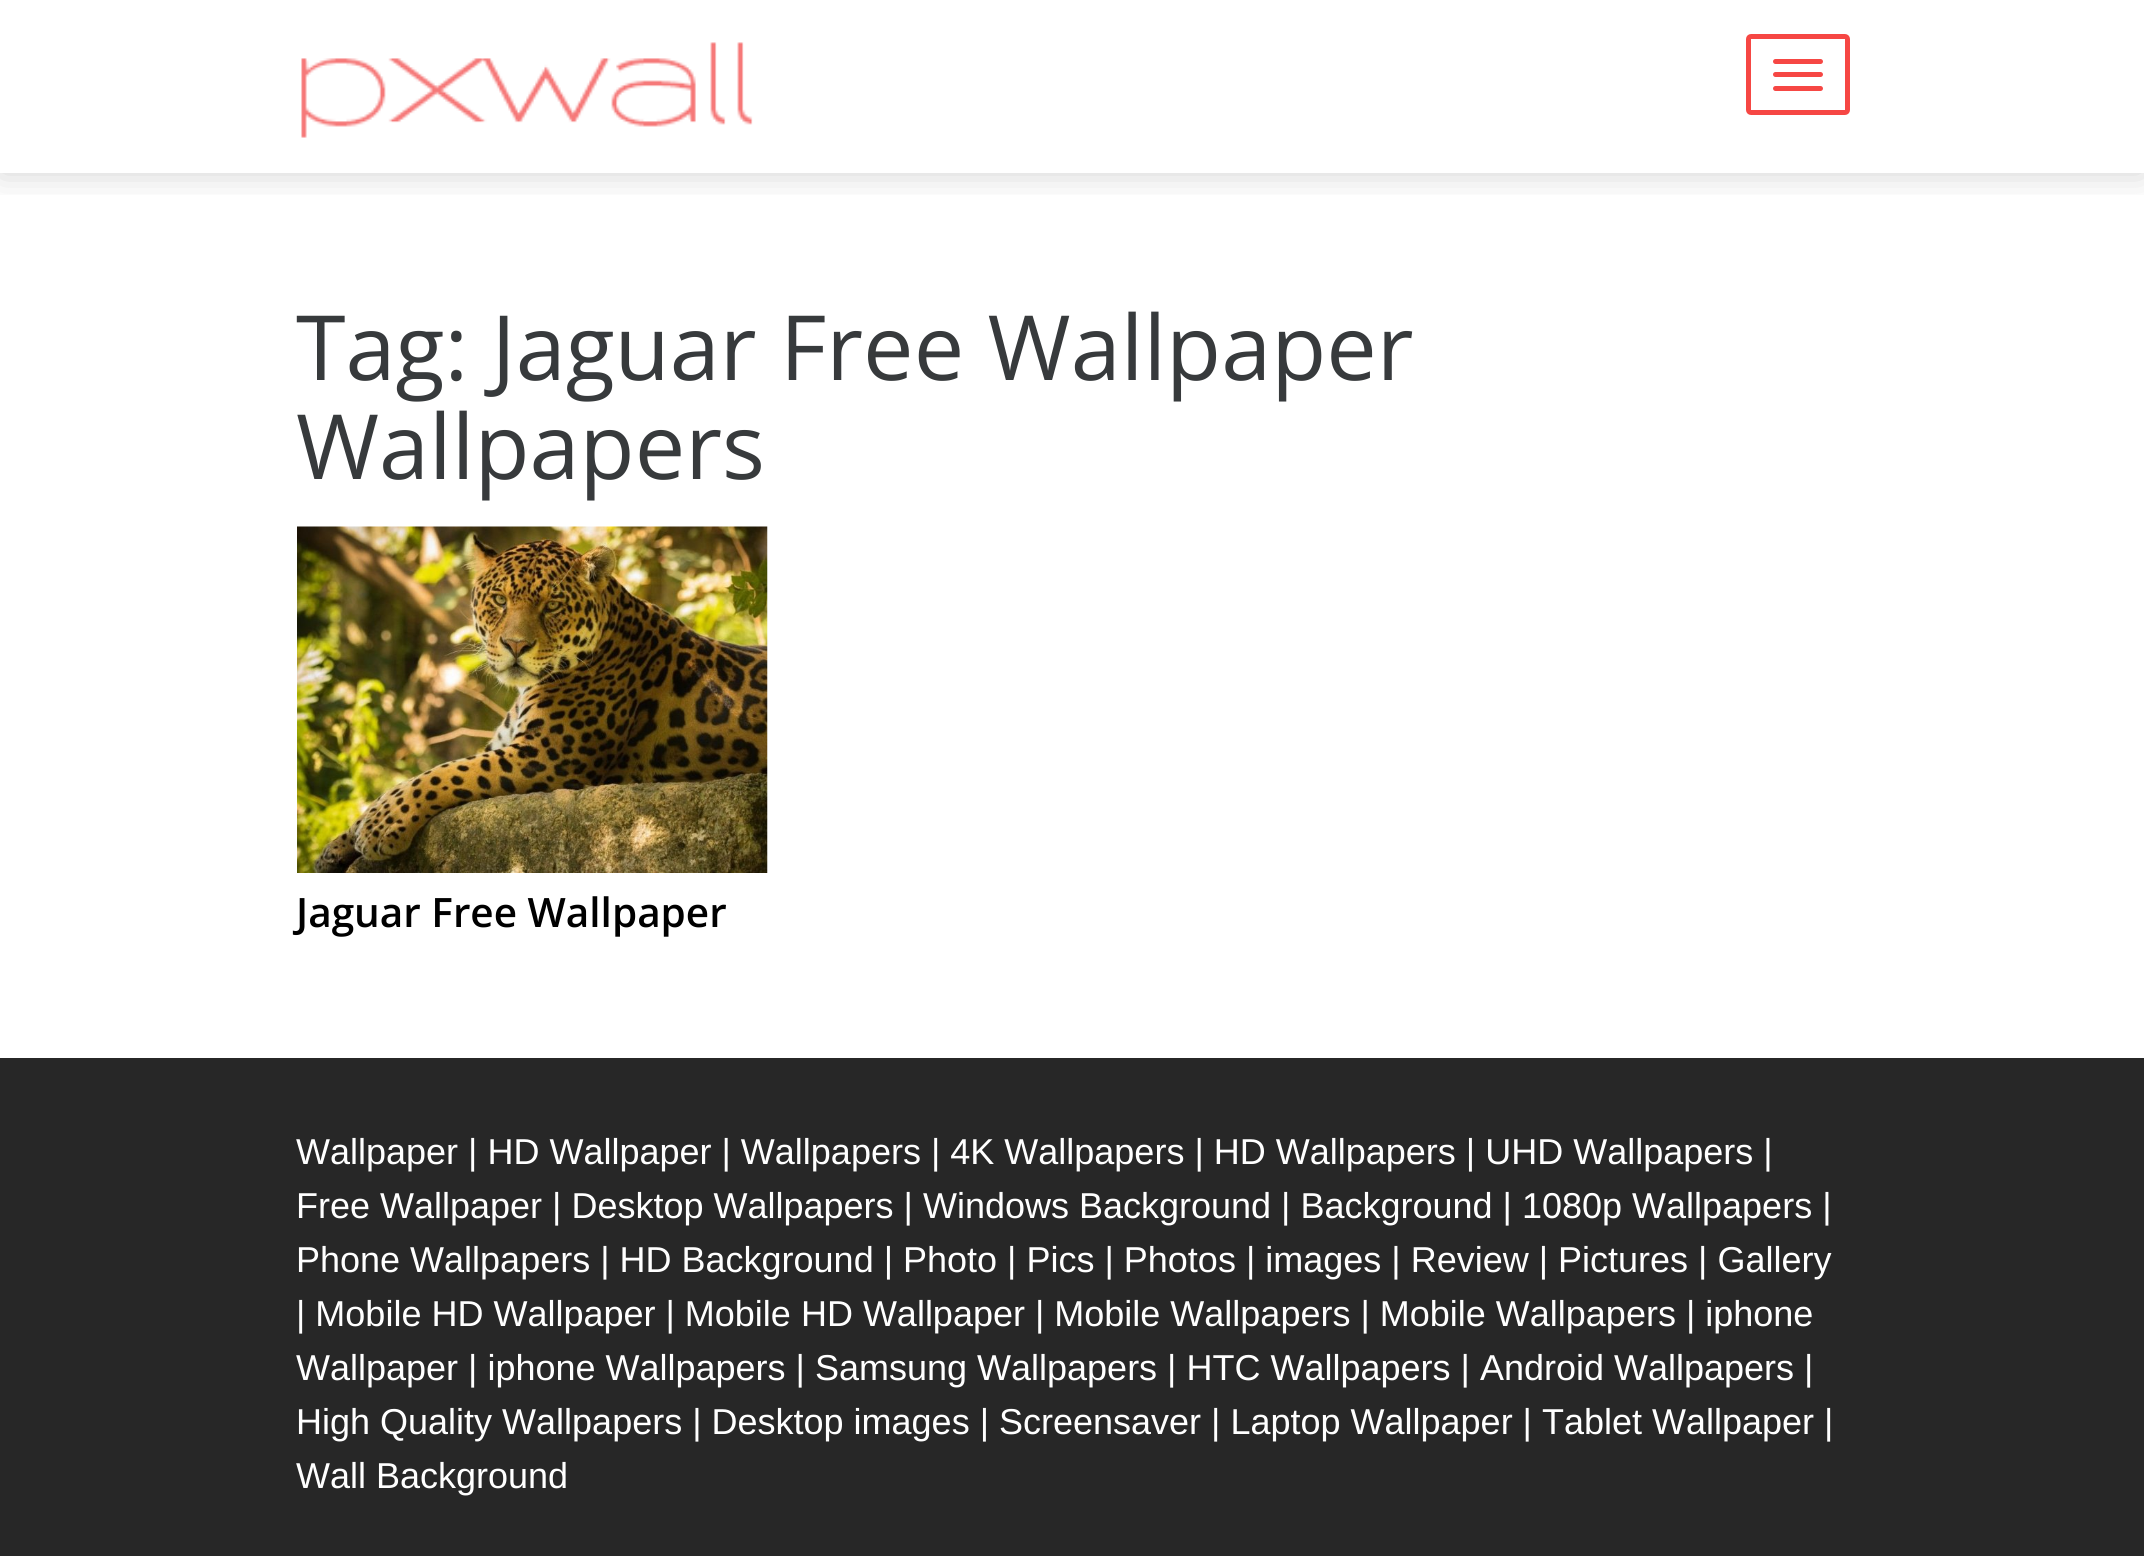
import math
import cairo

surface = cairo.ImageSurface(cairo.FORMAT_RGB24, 2144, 1556)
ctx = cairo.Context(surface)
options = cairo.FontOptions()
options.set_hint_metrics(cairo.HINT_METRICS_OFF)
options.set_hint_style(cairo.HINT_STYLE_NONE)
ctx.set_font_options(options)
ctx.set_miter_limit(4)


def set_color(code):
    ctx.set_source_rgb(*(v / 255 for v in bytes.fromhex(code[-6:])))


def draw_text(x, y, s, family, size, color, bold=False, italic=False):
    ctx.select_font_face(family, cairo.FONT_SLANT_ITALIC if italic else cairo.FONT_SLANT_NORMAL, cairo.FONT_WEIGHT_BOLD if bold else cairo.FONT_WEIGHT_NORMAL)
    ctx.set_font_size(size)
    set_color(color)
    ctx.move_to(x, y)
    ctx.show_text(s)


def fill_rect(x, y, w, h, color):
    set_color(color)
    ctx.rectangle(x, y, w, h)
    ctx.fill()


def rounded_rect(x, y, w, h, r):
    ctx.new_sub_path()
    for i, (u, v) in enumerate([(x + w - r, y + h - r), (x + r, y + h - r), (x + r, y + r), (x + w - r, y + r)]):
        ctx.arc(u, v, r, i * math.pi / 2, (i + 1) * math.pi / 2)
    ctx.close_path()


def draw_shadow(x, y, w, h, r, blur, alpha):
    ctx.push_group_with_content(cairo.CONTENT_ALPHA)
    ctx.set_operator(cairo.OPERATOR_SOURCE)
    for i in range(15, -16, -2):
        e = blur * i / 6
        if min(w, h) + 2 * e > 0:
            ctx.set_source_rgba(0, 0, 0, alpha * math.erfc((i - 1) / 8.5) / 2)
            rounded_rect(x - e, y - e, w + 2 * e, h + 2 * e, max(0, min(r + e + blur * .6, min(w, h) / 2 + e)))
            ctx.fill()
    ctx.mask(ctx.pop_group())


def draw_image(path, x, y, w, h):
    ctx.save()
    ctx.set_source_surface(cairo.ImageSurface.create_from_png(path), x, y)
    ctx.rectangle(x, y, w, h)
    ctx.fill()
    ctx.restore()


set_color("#ffffff")
ctx.paint()
ctx.save()
ctx.rectangle(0, 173, 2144, 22)
ctx.clip()
set_color("#000000")
draw_shadow(0, 0, 2144, 173, 0, 18, 0.18)
ctx.restore()
draw_image("assets/img1.png", 301, 42, 452, 96)
rounded_rect(1748.5, 36.5, 99, 76, 2.5)
set_color("#f64744")
ctx.set_line_width(5)
ctx.stroke()
rounded_rect(1773, 59, 50, 5, 2.5)
ctx.fill()
rounded_rect(1773, 72, 50, 5, 2.5)
ctx.fill()
rounded_rect(1773, 86, 50, 5, 2.5)
ctx.fill()
draw_text(296, 380, "Tag: Jaguar Free Wallpaper", "Open Sans", 90, "#373a3c")
draw_text(296, 479, "Wallpapers", "Open Sans", 90, "#373a3c")
draw_image("assets/img2.png", 297, 526, 471, 347)
draw_text(296, 927, "Jaguar Free Wallpaper", "Open Sans SemiBold", 40.5, "#000000")
fill_rect(0, 1058, 2144, 498, "#272727")
draw_text(296, 1164, "Wallpaper | HD Wallpaper | Wallpapers | 4K Wallpapers | HD Wallpapers | UHD Wallpapers |", "Liberation Sans", 36, "#ffffff")
draw_text(296, 1218, "Free Wallpaper | Desktop Wallpapers | Windows Background | Background | 1080p Wallpapers |", "Liberation Sans", 36, "#ffffff")
draw_text(296, 1272, "Phone Wallpapers | HD Background | Photo | Pics | Photos | images | Review | Pictures | Gallery", "Liberation Sans", 36, "#ffffff")
draw_text(296, 1326, "| Mobile HD Wallpaper | Mobile HD Wallpaper | Mobile Wallpapers | Mobile Wallpapers | iphone", "Liberation Sans", 36, "#ffffff")
draw_text(296, 1380, "Wallpaper | iphone Wallpapers | Samsung Wallpapers | HTC Wallpapers | Android Wallpapers |", "Liberation Sans", 36, "#ffffff")
draw_text(296, 1434, "High Quality Wallpapers | Desktop images | Screensaver | Laptop Wallpaper | Tablet Wallpaper |", "Liberation Sans", 36, "#ffffff")
draw_text(296, 1488, "Wall Background", "Liberation Sans", 36, "#ffffff")
surface.write_to_png("output.png")
